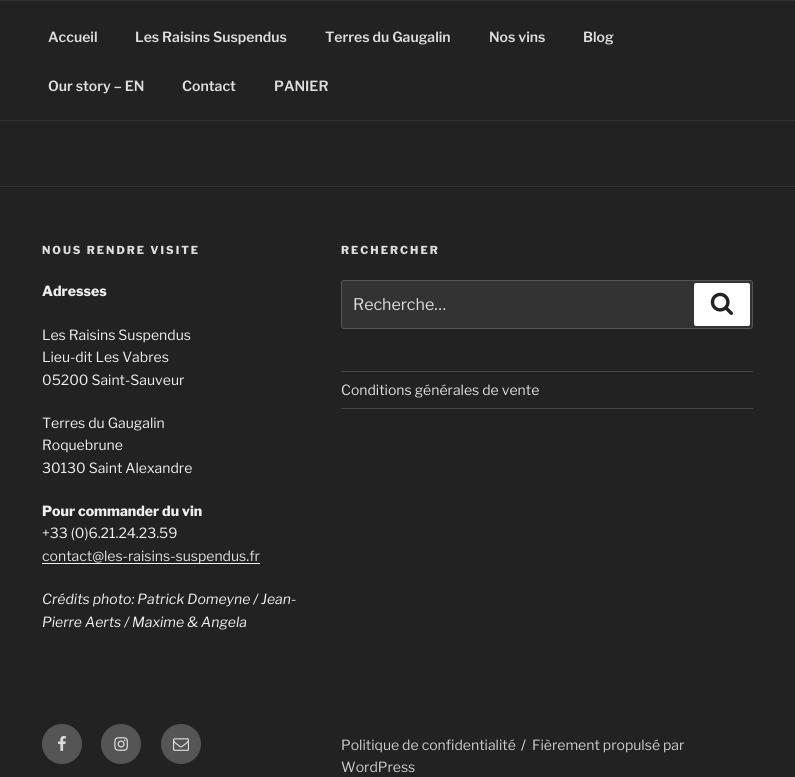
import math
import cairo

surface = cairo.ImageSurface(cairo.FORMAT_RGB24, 795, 777)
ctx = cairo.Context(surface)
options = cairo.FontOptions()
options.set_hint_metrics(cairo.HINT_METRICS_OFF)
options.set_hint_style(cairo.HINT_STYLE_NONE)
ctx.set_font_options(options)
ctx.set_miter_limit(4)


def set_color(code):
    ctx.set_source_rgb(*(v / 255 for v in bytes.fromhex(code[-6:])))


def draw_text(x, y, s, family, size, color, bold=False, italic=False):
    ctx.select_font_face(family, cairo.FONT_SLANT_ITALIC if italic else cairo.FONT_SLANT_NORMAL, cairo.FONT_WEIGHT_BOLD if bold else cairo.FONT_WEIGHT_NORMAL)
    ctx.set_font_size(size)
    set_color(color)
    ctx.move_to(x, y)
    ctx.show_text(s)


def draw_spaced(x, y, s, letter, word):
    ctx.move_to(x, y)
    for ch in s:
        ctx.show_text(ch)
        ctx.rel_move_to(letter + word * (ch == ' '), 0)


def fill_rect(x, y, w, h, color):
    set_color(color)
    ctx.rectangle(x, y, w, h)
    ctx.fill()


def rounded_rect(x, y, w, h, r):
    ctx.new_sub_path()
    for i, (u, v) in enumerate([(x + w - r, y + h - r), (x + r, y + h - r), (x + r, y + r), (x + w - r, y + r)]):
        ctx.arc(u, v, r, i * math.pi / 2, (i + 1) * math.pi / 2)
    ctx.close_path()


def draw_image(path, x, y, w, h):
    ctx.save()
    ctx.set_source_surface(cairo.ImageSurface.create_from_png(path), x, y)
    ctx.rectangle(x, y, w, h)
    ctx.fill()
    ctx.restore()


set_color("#222222")
ctx.paint()
fill_rect(0, 0, 795, 1, "#333333")
fill_rect(0, 120, 795, 1, "#333333")
draw_text(48, 42, "Accueil", "Libre Franklin SemiBold", 14, "#dddddd")
draw_text(135, 42, "Les Raisins Suspendus", "Libre Franklin SemiBold", 14, "#dddddd")
draw_text(325, 42, "Terres du Gaugalin", "Libre Franklin SemiBold", 14, "#dddddd")
draw_text(489, 42, "Nos vins", "Libre Franklin SemiBold", 14, "#dddddd")
draw_text(583, 42, "Blog", "Libre Franklin SemiBold", 14, "#dddddd")
draw_text(48, 91, "Our story – EN", "Libre Franklin SemiBold", 14, "#dddddd")
draw_text(182, 91, "Contact", "Libre Franklin SemiBold", 14, "#dddddd")
draw_text(274, 91, "PANIER", "Libre Franklin SemiBold", 14, "#dddddd")
fill_rect(0, 186, 795, 1, "#333333")
ctx.select_font_face("Libre Franklin ExtraBold")
ctx.set_font_size(11)
set_color("#dddddd")
draw_spaced(42, 254, "NOUS RENDRE VISITE", 2, 0)
draw_text(42, 296, "Adresses", "Libre Franklin ExtraBold", 14, "#eeeeee")
draw_text(42, 340, "Les Raisins Suspendus", "Libre Franklin", 14, "#eeeeee")
draw_text(42, 362, "Lieu-dit Les Vabres", "Libre Franklin", 14, "#eeeeee")
draw_text(42, 385, "05200 Saint-Sauveur", "Libre Franklin", 14, "#eeeeee")
draw_text(42, 428, "Terres du Gaugalin", "Libre Franklin", 14, "#eeeeee")
draw_text(42, 450, "Roquebrune", "Libre Franklin", 14, "#eeeeee")
draw_text(42, 473, "30130 Saint Alexandre", "Libre Franklin", 14, "#eeeeee")
draw_text(42, 516, "Pour commander du vin", "Libre Franklin ExtraBold", 14, "#eeeeee")
draw_text(42, 538, "+33 (0)6.21.24.23.59", "Libre Franklin", 14, "#eeeeee")
fill_rect(42, 563, 218, 1, "#f0f0f0")
draw_text(42, 561, "contact@les-raisins-suspendus.fr", "Libre Franklin", 14, "#dddddd")
draw_text(42, 604, "Crédits photo: Patrick Domeyne / Jean-", "Libre Franklin", 14, "#eeeeee", italic=True)
draw_text(42, 627, "Pierre Aerts / Maxime & Angela", "Libre Franklin", 14, "#eeeeee", italic=True)
ctx.select_font_face("Libre Franklin ExtraBold")
ctx.set_font_size(11)
set_color("#dddddd")
draw_spaced(341, 254, "RECHERCHER", 2, 0)
set_color("#333333")
rounded_rect(341.5, 280.5, 411, 48, 2.5)
ctx.fill_preserve()
set_color("#555555")
ctx.set_line_width(1)
ctx.stroke()
draw_text(353, 310, "Recherche…", "Libre Franklin", 16, "#dddddd")
set_color("#ffffff")
rounded_rect(694, 283, 56, 43, 2)
ctx.fill()
draw_image("assets/img1.png", 710, 292, 23, 23)
fill_rect(341, 371, 412, 1, "#444444")
fill_rect(341, 408, 412, 1, "#444444")
draw_text(341, 395, "Conditions générales de vente", "Libre Franklin", 14, "#dddddd")
set_color("#555555")
ctx.new_path()
ctx.arc(62, 744, 20, 0, 2 * math.pi)
ctx.fill()
draw_image("assets/img2.png", 58, 736, 8, 15)
ctx.arc(121, 744, 20, 0, 2 * math.pi)
ctx.fill()
draw_image("assets/img3.png", 114, 737, 14, 14)
ctx.arc(181, 744, 20, 0, 2 * math.pi)
ctx.fill()
draw_image("assets/img4.png", 173, 738, 16, 13)
draw_text(341, 750, "Politique de confidentialité", "Libre Franklin", 14, "#cccccc")
draw_text(521, 750, "/", "Libre Franklin", 14, "#eeeeee")
draw_text(532, 750, "Fièrement propulsé par", "Libre Franklin", 14, "#cccccc")
draw_text(341, 772, "WordPress", "Libre Franklin", 14, "#cccccc")
surface.write_to_png("output.png")
